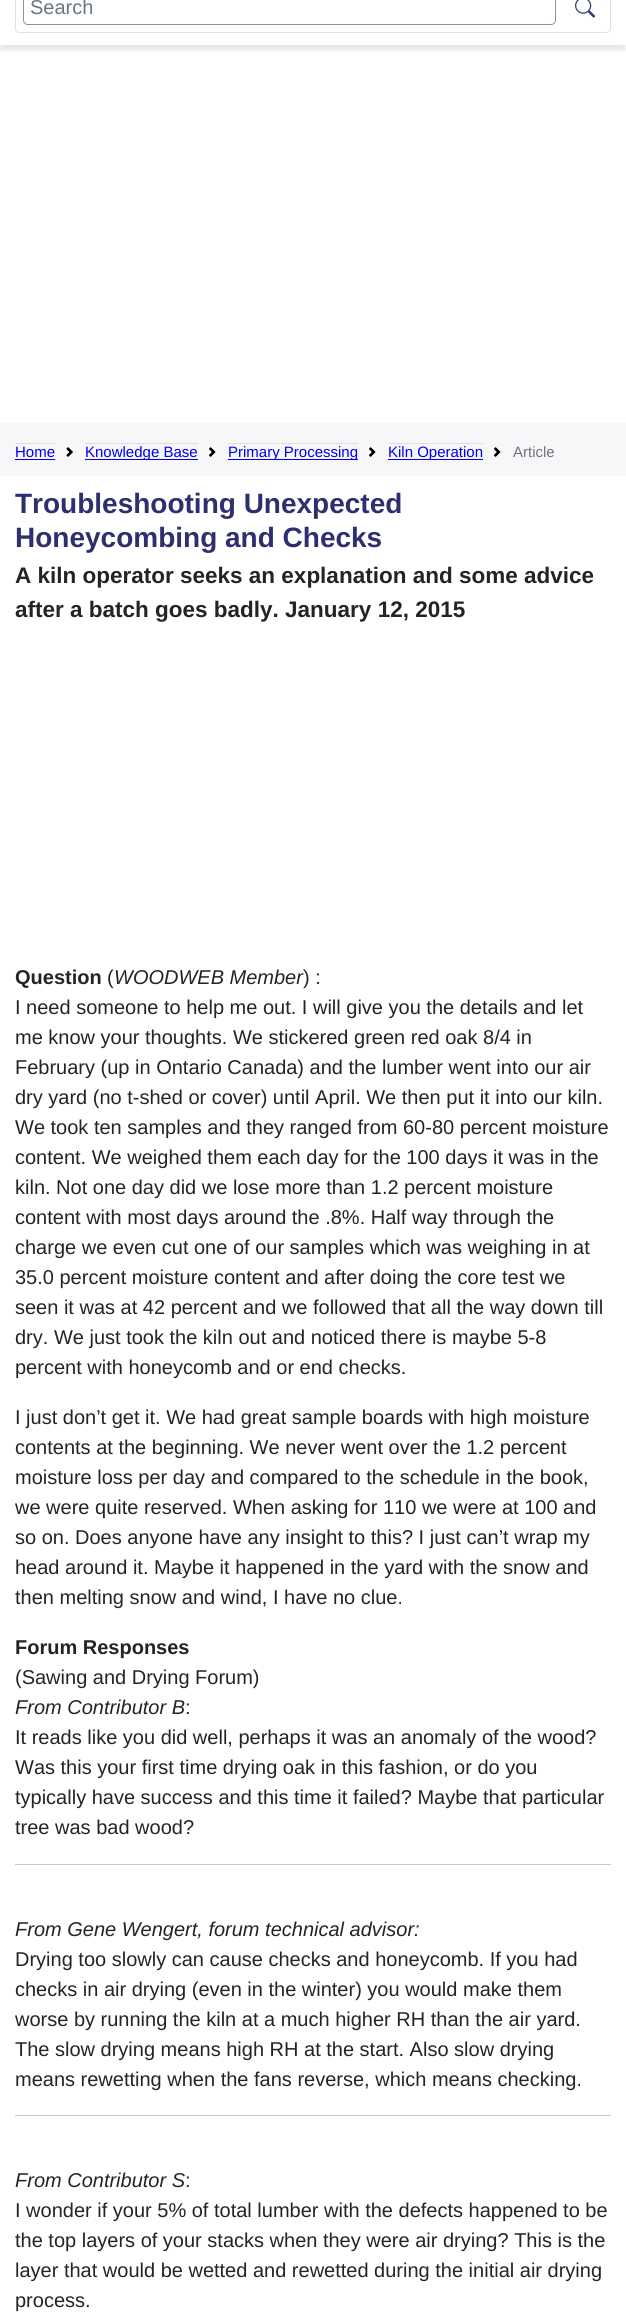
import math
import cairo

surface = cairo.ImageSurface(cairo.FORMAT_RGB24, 626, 2321)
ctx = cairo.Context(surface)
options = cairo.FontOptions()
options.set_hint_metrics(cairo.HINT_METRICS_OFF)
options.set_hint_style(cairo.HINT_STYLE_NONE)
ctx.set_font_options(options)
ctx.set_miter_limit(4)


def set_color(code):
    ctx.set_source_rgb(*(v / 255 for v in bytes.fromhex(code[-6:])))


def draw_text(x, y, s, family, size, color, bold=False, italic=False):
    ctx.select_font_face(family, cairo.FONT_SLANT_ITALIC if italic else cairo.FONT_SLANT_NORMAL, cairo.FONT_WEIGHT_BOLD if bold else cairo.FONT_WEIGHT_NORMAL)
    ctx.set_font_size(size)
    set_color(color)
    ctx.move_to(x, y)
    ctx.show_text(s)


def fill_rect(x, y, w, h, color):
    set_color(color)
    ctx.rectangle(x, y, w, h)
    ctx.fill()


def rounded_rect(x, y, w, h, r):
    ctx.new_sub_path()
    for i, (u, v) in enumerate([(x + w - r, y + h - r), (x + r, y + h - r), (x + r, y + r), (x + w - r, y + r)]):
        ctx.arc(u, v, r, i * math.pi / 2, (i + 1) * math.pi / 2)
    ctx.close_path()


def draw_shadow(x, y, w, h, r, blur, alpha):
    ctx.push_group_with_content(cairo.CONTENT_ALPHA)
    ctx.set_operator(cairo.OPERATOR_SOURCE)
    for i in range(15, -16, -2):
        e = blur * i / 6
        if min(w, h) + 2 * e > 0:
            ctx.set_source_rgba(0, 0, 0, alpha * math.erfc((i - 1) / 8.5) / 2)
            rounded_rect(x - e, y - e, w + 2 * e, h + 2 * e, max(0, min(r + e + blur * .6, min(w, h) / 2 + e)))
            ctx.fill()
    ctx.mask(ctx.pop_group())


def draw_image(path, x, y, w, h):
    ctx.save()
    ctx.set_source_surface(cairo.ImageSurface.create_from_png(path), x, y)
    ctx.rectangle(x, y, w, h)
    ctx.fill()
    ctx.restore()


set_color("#ffffff")
ctx.paint()
ctx.save()
ctx.rectangle(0, 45, 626, 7)
ctx.clip()
set_color("#000000")
draw_shadow(0, -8, 626, 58, 0, 2.5, 0.1)
ctx.restore()
rounded_rect(15.5, -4.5, 595, 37, 3.5)
set_color("#e1e1e1")
ctx.set_line_width(1)
ctx.stroke()
rounded_rect(23.5, -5.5, 532, 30, 4.5)
set_color("#8d9296")
ctx.stroke()
draw_text(30, 14, "Search", "Liberation Sans", 20, "#6c757d")
draw_image("assets/img1.png", 575, 0, 20, 18)
fill_rect(0, 423, 626, 53, "#f7f7fa")
draw_text(15, 457, "Home", "Liberation Sans", 15, "#0000ee")
fill_rect(15, 443, 40, 1, "#dedee1")
fill_rect(15, 459, 40, 1, "#0000ee")
draw_image("assets/img2.png", 66, 447, 7, 10)
fill_rect(85, 459, 113, 1, "#0000ee")
draw_text(85, 457, "Knowledge Base", "Liberation Sans", 15, "#0000ee")
fill_rect(85, 443, 113, 1, "#dedee1")
draw_image("assets/img3.png", 208, 447, 8, 10)
fill_rect(228, 459, 130, 1, "#0000ee")
draw_text(228, 457, "Primary Processing", "Liberation Sans", 15, "#0000ee")
fill_rect(228, 443, 130, 1, "#dedee1")
draw_image("assets/img3.png", 368, 447, 8, 10)
fill_rect(388, 459, 95, 1, "#0000ee")
draw_text(388, 457, "Kiln Operation", "Liberation Sans", 15, "#0000ee")
fill_rect(388, 443, 95, 1, "#dedee1")
draw_image("assets/img3.png", 493, 447, 8, 10)
draw_text(513, 457, "Article", "Liberation Sans", 15, "#6c757d")
draw_text(15, 513, "Troubleshooting Unexpected", "Liberation Sans", 28, "#2d2f6f", bold=True)
draw_text(15, 547, "Honeycombing and Checks", "Liberation Sans", 28, "#2d2f6f", bold=True)
draw_text(15, 583, "A kiln operator seeks an explanation and some advice", "Liberation Sans", 22.5, "#212529", bold=True)
draw_text(15, 617, "after a batch goes badly. January 12, 2015", "Liberation Sans", 22.5, "#212529", bold=True)
draw_text(15, 984, "Question", "Liberation Sans", 20, "#212529", bold=True)
draw_text(107, 984, "(", "Liberation Sans", 20, "#212529")
draw_text(114, 984, "WOODWEB Member", "Liberation Sans", 20, "#212529", italic=True)
draw_text(303, 984, ") :", "Liberation Sans", 20, "#212529")
draw_text(15, 1014, "I need someone to help me out. I will give you the details and let", "Liberation Sans", 20, "#212529")
draw_text(15, 1044, "me know your thoughts. We stickered green red oak 8/4 in", "Liberation Sans", 20, "#212529")
draw_text(15, 1074, "February (up in Ontario Canada) and the lumber went into our air", "Liberation Sans", 20, "#212529")
draw_text(15, 1104, "dry yard (no t-shed or cover) until April. We then put it into our kiln.", "Liberation Sans", 20, "#212529")
draw_text(15, 1134, "We took ten samples and they ranged from 60-80 percent moisture", "Liberation Sans", 20, "#212529")
draw_text(15, 1164, "content. We weighed them each day for the 100 days it was in the", "Liberation Sans", 20, "#212529")
draw_text(15, 1194, "kiln. Not one day did we lose more than 1.2 percent moisture", "Liberation Sans", 20, "#212529")
draw_text(15, 1224, "content with most days around the .8%. Half way through the", "Liberation Sans", 20, "#212529")
draw_text(15, 1254, "charge we even cut one of our samples which was weighing in at", "Liberation Sans", 20, "#212529")
draw_text(15, 1284, "35.0 percent moisture content and after doing the core test we", "Liberation Sans", 20, "#212529")
draw_text(15, 1314, "seen it was at 42 percent and we followed that all the way down till", "Liberation Sans", 20, "#212529")
draw_text(15, 1344, "dry. We just took the kiln out and noticed there is maybe 5-8", "Liberation Sans", 20, "#212529")
draw_text(15, 1374, "percent with honeycomb and or end checks.", "Liberation Sans", 20, "#212529")
draw_text(15, 1424, "I just don’t get it. We had great sample boards with high moisture", "Liberation Sans", 20, "#212529")
draw_text(15, 1454, "contents at the beginning. We never went over the 1.2 percent", "Liberation Sans", 20, "#212529")
draw_text(15, 1484, "moisture loss per day and compared to the schedule in the book,", "Liberation Sans", 20, "#212529")
draw_text(15, 1514, "we were quite reserved. When asking for 110 we were at 100 and", "Liberation Sans", 20, "#212529")
draw_text(15, 1544, "so on. Does anyone have any insight to this? I just can’t wrap my", "Liberation Sans", 20, "#212529")
draw_text(15, 1574, "head around it. Maybe it happened in the yard with the snow and", "Liberation Sans", 20, "#212529")
draw_text(15, 1604, "then melting snow and wind, I have no clue.", "Liberation Sans", 20, "#212529")
draw_text(15, 1654, "Forum Responses", "Liberation Sans", 20, "#212529", bold=True)
draw_text(15, 1684, "(Sawing and Drying Forum)", "Liberation Sans", 20, "#212529")
draw_text(15, 1714, "From Contributor B", "Liberation Sans", 20, "#212529", italic=True)
draw_text(185, 1714, ":", "Liberation Sans", 20, "#212529")
draw_text(15, 1744, "It reads like you did well, perhaps it was an anomaly of the wood?", "Liberation Sans", 20, "#212529")
draw_text(15, 1774, "Was this your first time drying oak in this fashion, or do you", "Liberation Sans", 20, "#212529")
draw_text(15, 1804, "typically have success and this time it failed? Maybe that particular", "Liberation Sans", 20, "#212529")
draw_text(15, 1834, "tree was bad wood?", "Liberation Sans", 20, "#212529")
fill_rect(15, 1864, 596, 1, "#c8c9ca")
draw_text(15, 1936, "From Gene Wengert, forum technical advisor:", "Liberation Sans", 20, "#212529", italic=True)
draw_text(15, 1966, "Drying too slowly can cause checks and honeycomb. If you had", "Liberation Sans", 20, "#212529")
draw_text(15, 1996, "checks in air drying (even in the winter) you would make them", "Liberation Sans", 20, "#212529")
draw_text(15, 2026, "worse by running the kiln at a much higher RH than the air yard.", "Liberation Sans", 20, "#212529")
draw_text(15, 2056, "The slow drying means high RH at the start. Also slow drying", "Liberation Sans", 20, "#212529")
draw_text(15, 2086, "means rewetting when the fans reverse, which means checking.", "Liberation Sans", 20, "#212529")
fill_rect(15, 2115, 596, 1, "#c8c9ca")
draw_text(15, 2187, "From Contributor S", "Liberation Sans", 20, "#212529", italic=True)
draw_text(185, 2187, ":", "Liberation Sans", 20, "#212529")
draw_text(15, 2217, "I wonder if your 5% of total lumber with the defects happened to be", "Liberation Sans", 20, "#212529")
draw_text(15, 2247, "the top layers of your stacks when they were air drying? This is the", "Liberation Sans", 20, "#212529")
draw_text(15, 2277, "layer that would be wetted and rewetted during the initial air drying", "Liberation Sans", 20, "#212529")
draw_text(15, 2307, "process.", "Liberation Sans", 20, "#212529")
surface.write_to_png("output.png")
